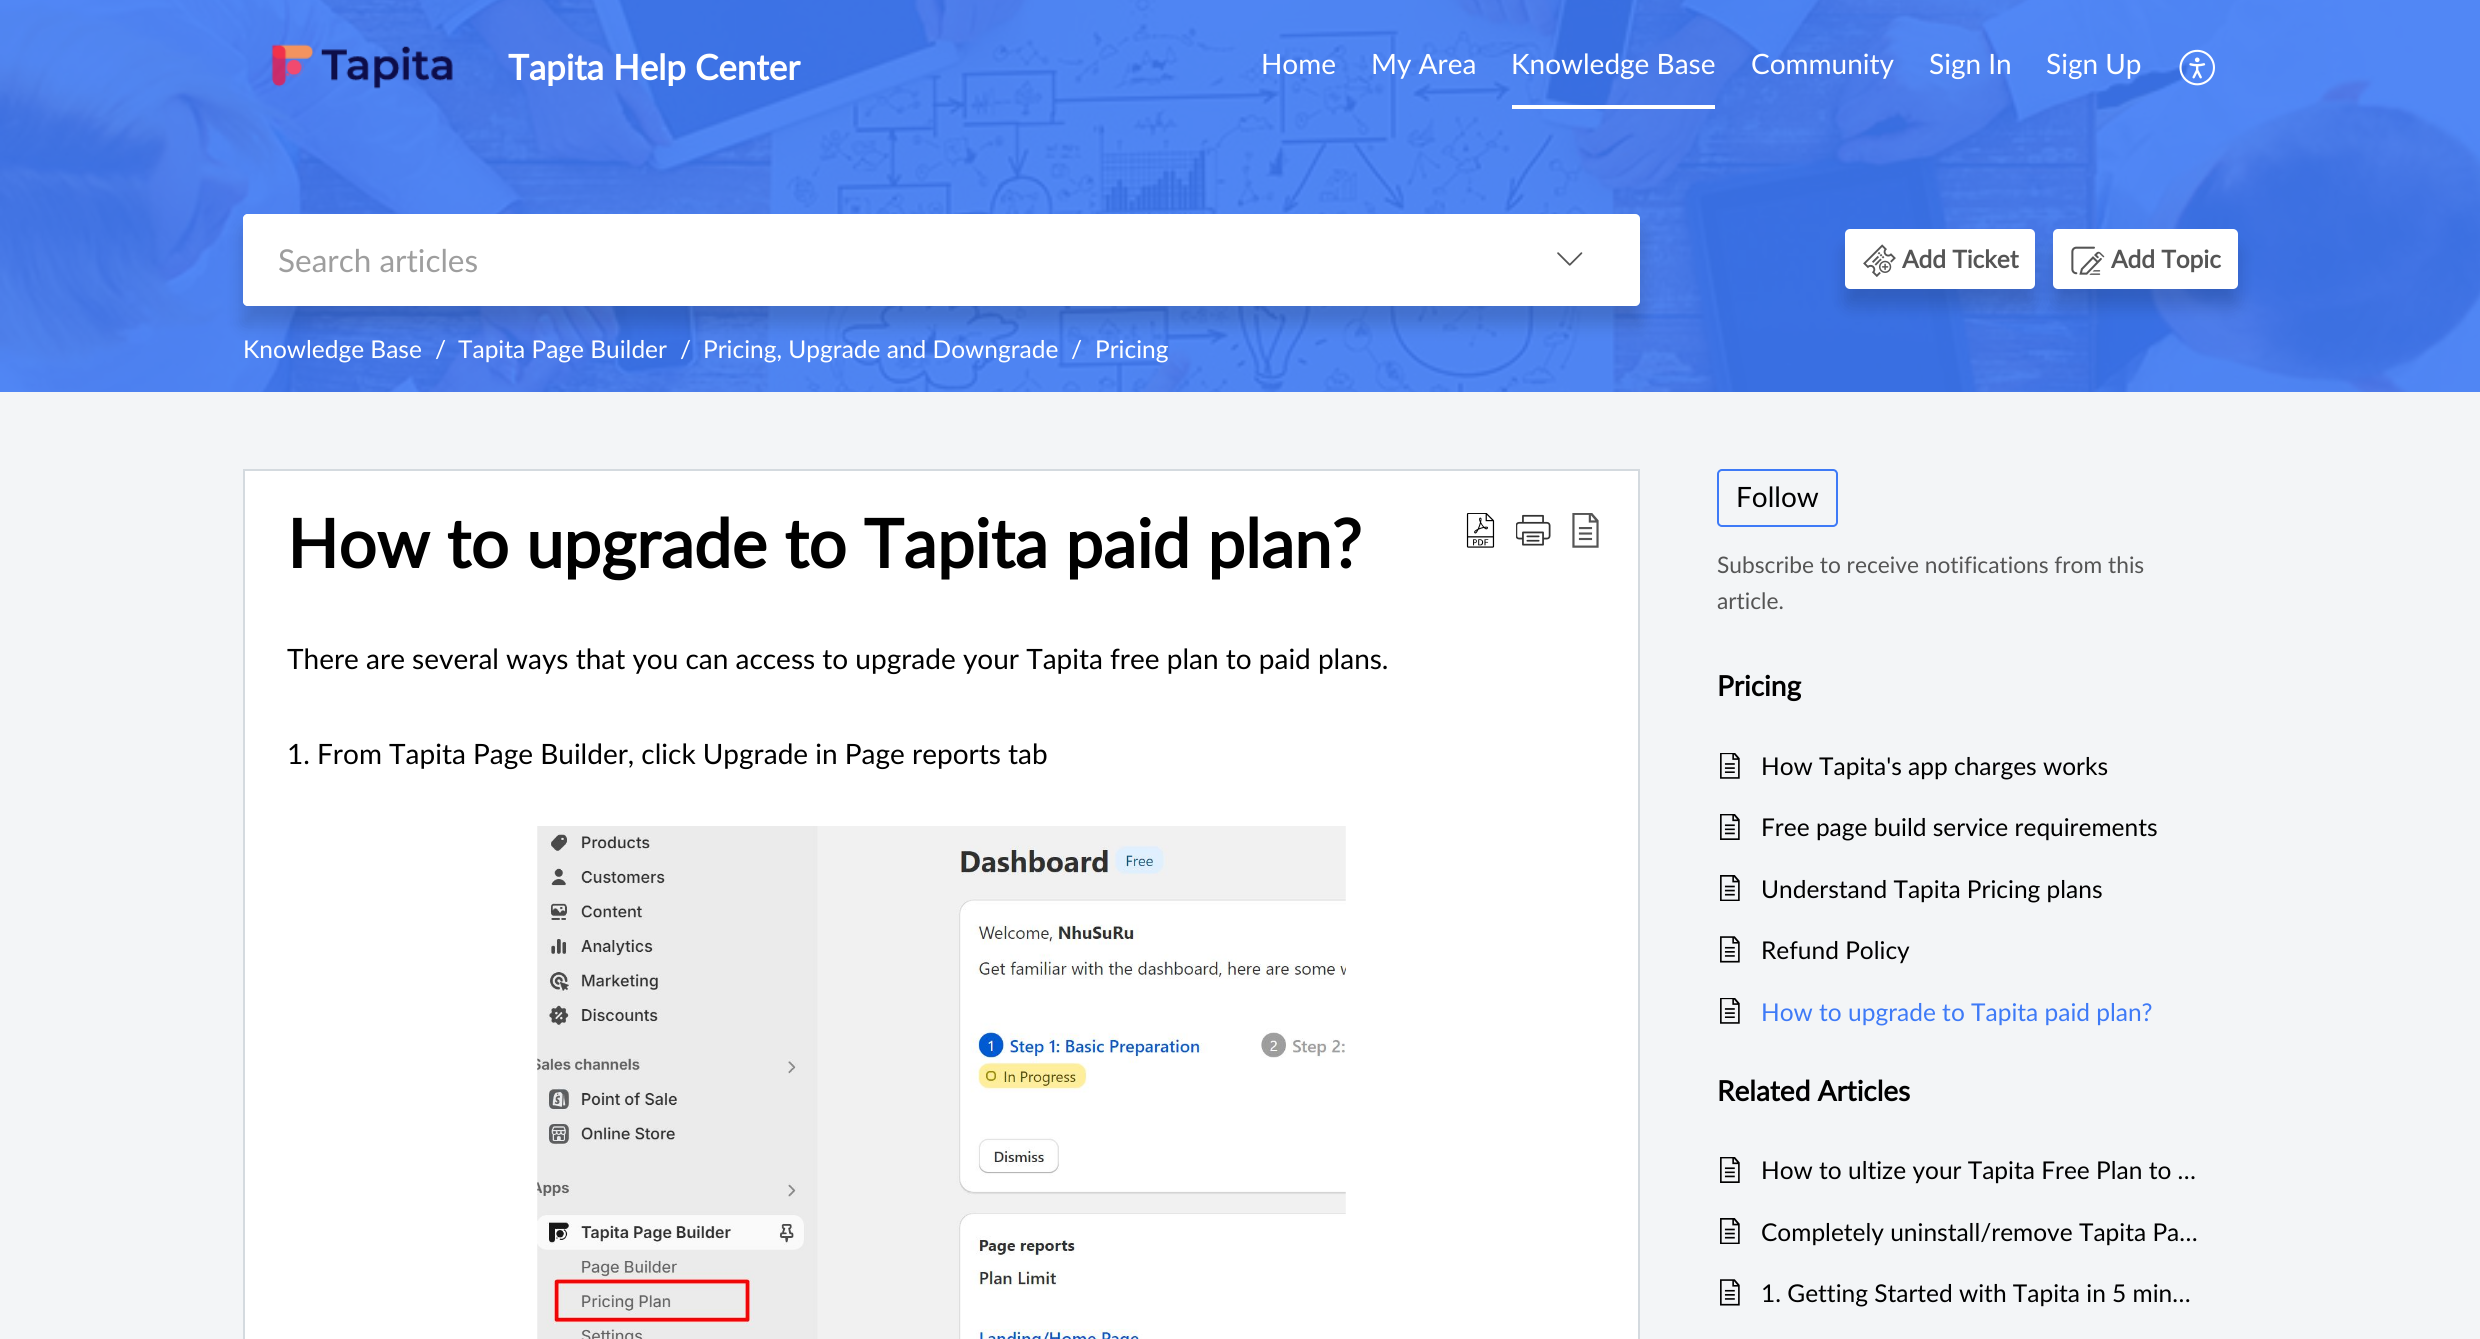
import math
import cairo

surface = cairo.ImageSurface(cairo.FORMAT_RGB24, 2480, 1339)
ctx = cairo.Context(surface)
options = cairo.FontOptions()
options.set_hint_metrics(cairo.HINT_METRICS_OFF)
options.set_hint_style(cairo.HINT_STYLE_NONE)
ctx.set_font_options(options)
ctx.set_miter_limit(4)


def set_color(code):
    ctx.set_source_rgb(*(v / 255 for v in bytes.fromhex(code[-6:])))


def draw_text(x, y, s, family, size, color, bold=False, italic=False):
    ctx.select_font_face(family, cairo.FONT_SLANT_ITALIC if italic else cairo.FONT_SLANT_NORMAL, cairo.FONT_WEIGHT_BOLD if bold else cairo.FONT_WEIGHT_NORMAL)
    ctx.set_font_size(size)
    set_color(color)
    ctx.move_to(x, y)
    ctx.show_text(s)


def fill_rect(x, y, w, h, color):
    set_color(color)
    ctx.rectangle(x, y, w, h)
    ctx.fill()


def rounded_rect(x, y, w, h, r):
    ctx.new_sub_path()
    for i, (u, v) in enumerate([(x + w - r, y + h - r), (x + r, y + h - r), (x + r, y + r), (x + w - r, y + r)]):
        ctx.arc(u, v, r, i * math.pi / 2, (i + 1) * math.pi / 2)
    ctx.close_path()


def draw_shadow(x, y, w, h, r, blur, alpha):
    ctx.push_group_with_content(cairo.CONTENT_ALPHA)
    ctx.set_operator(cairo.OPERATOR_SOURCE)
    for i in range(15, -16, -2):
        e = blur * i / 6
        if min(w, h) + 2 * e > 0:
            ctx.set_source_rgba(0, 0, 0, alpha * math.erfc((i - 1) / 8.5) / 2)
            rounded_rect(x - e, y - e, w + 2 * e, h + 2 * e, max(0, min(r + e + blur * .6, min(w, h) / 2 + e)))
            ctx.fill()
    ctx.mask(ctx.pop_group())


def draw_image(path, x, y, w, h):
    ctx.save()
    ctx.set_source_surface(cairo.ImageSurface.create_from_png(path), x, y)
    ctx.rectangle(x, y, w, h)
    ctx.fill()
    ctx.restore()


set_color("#f3f5f7")
ctx.paint()
draw_image("assets/img1.png", 0, 0, 2480, 392)
draw_image("assets/img2.png", 271, 44, 182, 45)
draw_text(508, 80, "Tapita Help Center", "Lato", 35, "#ffffff", bold=True)
draw_text(1261, 74, "Home", "Lato", 28, "#ffffff")
draw_text(1371, 74, "My Area", "Lato", 28, "#ffffff")
fill_rect(1512, 105, 203, 4, "#ffffff")
draw_text(1511, 74, "Knowledge Base", "Lato", 28, "#ffffff")
draw_text(1751, 74, "Community", "Lato", 28, "#ffffff")
draw_text(1929, 74, "Sign In", "Lato", 28, "#ffffff")
draw_text(2046, 74, "Sign Up", "Lato", 28, "#ffffff")
draw_image("assets/img3.png", 2179, 49, 36, 37)
set_color("#000000")
draw_shadow(243, 231, 1397, 93, 0, 9, 0.16)
set_color("#ffffff")
rounded_rect(243, 214, 1397, 92, 5)
ctx.fill()
rounded_rect(243, 214, 1257, 92, 5)
ctx.fill()
draw_text(278, 272, "Search articles", "Lato", 31.5, "#9e9e9e")
ctx.set_source_rgba(1, 1, 1, 0.5)
ctx.new_path()
ctx.move_to(1500, 214)
ctx.line_to(1635, 214)
ctx.curve_to(1638, 214, 1640, 216, 1640, 219)
ctx.line_to(1640, 301)
ctx.curve_to(1640, 304, 1638, 306, 1635, 306)
ctx.line_to(1500, 306)
ctx.close_path()
ctx.fill()
draw_image("assets/img4.png", 1557, 252, 26, 14)
set_color("#000000")
draw_shadow(1845, 247, 190, 59, 5, 9, 0.16)
set_color("#ffffff")
rounded_rect(1845, 229, 190, 60, 5)
ctx.fill()
draw_image("assets/img5.png", 1863, 244, 33, 33)
draw_text(1902, 268, "Add Ticket", "Lato", 24.5, "#555555", bold=True)
set_color("#000000")
draw_shadow(2053, 247, 185, 59, 5, 9, 0.16)
set_color("#ffffff")
rounded_rect(2053, 229, 185, 60, 5)
ctx.fill()
draw_image("assets/img6.png", 2071, 246, 34, 29)
draw_text(2111, 268, "Add Topic", "Lato", 24.5, "#555555", bold=True)
draw_text(243, 358, "Knowledge Base", "Lato", 24.5, "#ffffff")
draw_text(435, 358, "/", "Lato", 24.5, "#ffffff")
draw_text(458, 358, "Tapita Page Builder", "Lato", 24.5, "#ffffff")
draw_text(680, 358, "/", "Lato", 24.5, "#ffffff")
draw_text(703, 358, "Pricing, Upgrade and Downgrade", "Lato", 24.5, "#ffffff")
draw_text(1071, 358, "/", "Lato", 24.5, "#ffffff")
draw_text(1095, 358, "Pricing", "Lato", 24.5, "#ffffff")
ctx.rectangle(244, 470, 1395, 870)
ctx.fill_preserve()
set_color("#d4dadf")
ctx.stroke()
draw_text(287, 568, "How to upgrade to Tapita paid plan?", "Lato", 67.25, "#000000", bold=True)
draw_image("assets/img7.png", 1466, 513, 29, 35)
draw_image("assets/img8.png", 1516, 514, 35, 32)
draw_image("assets/img9.png", 1572, 513, 27, 35)
draw_text(287, 669, "There are several ways that you can access to upgrade your Tapita free plan to paid plans.", "Lato", 28, "#000000")
draw_text(287, 764, "1. From Tapita Page Builder, click Upgrade in Page reports tab", "Lato", 28, "#000000")
draw_image("assets/img10.png", 537, 826, 809, 513)
rounded_rect(1718, 470, 119, 56, 4)
set_color("#3e7af7")
ctx.stroke()
draw_text(1736, 507, "Follow", "Lato", 28, "#000000")
draw_text(1717, 573, "Subscribe to receive notifications from this", "Lato", 22.75, "#555555")
draw_text(1717, 609, "article.", "Lato", 22.75, "#555555")
draw_text(1717, 696, "Pricing", "Lato", 28, "#000000", bold=True)
draw_image("assets/img11.png", 1720, 753, 20, 26)
draw_text(1761, 775, "How Tapita's app charges works", "Lato", 24.5, "#000000")
draw_image("assets/img12.png", 1720, 814, 20, 26)
draw_text(1761, 836, "Free page build service requirements", "Lato", 24.5, "#000000")
draw_image("assets/img13.png", 1720, 875, 20, 26)
draw_text(1761, 898, "Understand Tapita Pricing plans", "Lato", 24.5, "#000000")
draw_image("assets/img14.png", 1720, 936, 20, 27)
draw_text(1761, 959, "Refund Policy", "Lato", 24.5, "#000000")
draw_image("assets/img11.png", 1720, 998, 20, 26)
draw_text(1761, 1021, "How to upgrade to Tapita paid plan?", "Lato", 24.5, "#3e7af7")
draw_text(1717, 1101, "Related Articles", "Lato", 28, "#000000", bold=True)
draw_image("assets/img12.png", 1720, 1157, 20, 26)
draw_text(1761, 1179, "How to ultize your Tapita Free Plan to …", "Lato", 24.5, "#000000")
draw_image("assets/img13.png", 1720, 1218, 20, 26)
draw_text(1761, 1241, "Completely uninstall/remove Tapita Pa…", "Lato", 24.5, "#000000")
draw_image("assets/img14.png", 1720, 1279, 20, 27)
draw_text(1761, 1302, "1. Getting Started with Tapita in 5 min…", "Lato", 24.5, "#000000")
surface.write_to_png("output.png")
